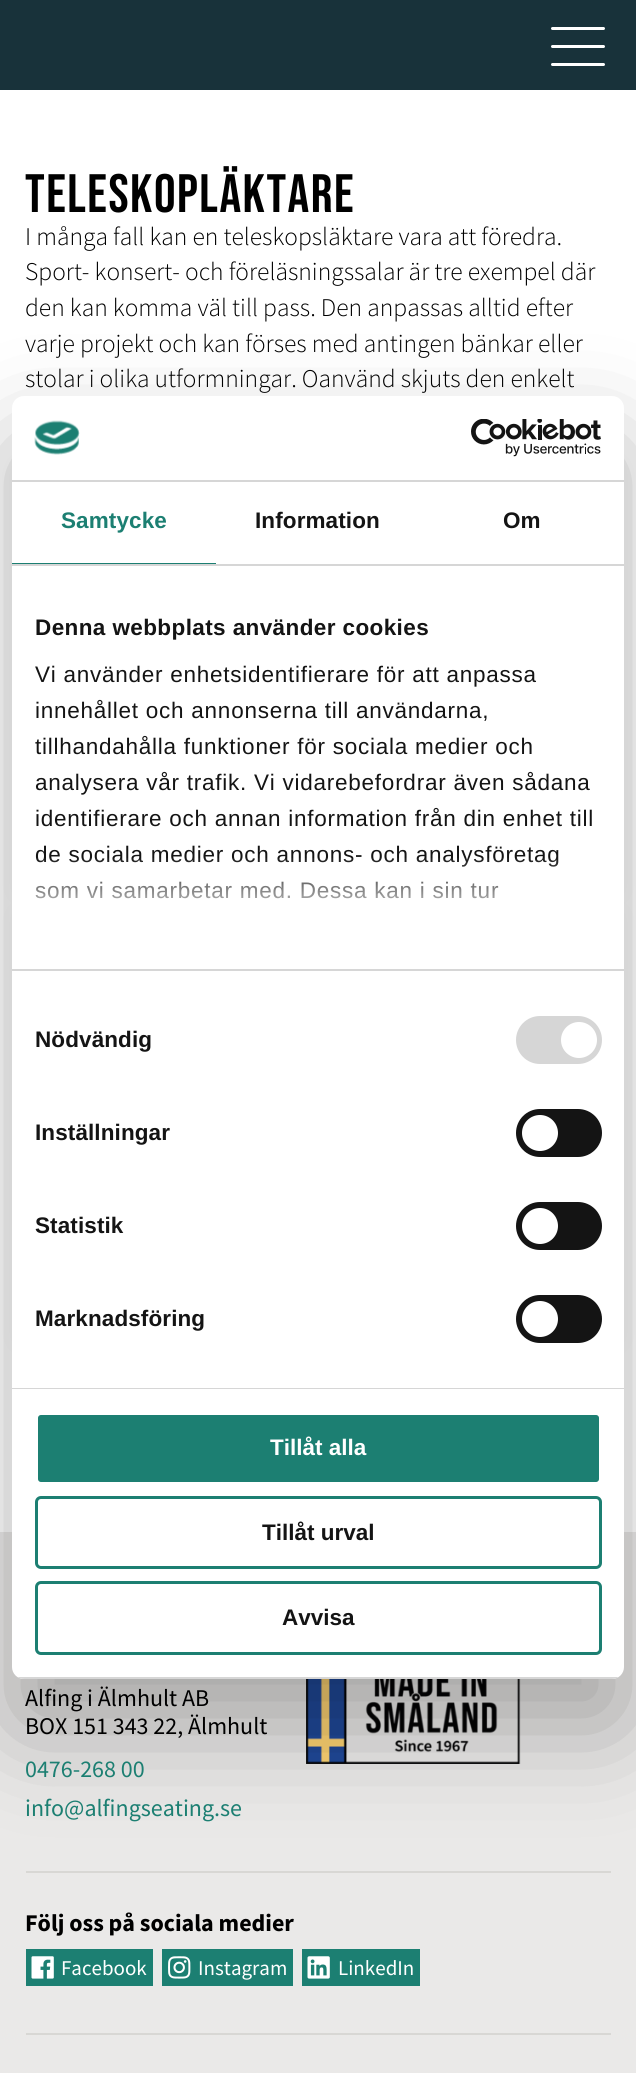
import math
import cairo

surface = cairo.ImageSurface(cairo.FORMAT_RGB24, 636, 2073)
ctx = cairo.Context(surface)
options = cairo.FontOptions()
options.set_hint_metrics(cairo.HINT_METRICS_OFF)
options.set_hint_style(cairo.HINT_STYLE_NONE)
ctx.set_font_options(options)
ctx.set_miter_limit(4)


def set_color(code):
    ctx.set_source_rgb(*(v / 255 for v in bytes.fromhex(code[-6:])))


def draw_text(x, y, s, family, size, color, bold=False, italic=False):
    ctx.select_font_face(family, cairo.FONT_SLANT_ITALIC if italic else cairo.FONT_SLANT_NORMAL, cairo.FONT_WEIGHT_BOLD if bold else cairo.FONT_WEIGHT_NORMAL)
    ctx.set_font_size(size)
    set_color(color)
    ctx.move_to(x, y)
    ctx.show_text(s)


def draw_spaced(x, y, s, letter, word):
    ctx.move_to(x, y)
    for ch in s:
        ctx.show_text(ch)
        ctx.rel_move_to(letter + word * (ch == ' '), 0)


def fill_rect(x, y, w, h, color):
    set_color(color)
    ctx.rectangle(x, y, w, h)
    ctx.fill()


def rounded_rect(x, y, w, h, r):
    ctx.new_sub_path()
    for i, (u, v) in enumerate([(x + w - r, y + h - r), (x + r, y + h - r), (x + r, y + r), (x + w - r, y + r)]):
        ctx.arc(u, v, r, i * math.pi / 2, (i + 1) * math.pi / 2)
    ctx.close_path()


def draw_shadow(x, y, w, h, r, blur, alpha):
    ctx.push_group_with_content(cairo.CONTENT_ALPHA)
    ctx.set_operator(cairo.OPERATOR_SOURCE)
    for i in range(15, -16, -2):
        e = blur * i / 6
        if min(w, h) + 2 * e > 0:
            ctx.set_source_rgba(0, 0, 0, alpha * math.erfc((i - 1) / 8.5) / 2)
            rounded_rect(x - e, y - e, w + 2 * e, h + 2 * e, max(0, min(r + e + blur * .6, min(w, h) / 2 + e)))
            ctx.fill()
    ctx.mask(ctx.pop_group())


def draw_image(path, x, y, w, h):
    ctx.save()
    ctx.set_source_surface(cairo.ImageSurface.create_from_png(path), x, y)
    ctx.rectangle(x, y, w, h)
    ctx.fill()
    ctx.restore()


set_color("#ffffff")
ctx.paint()
fill_rect(0, 0, 636, 90, "#18323a")
set_color("#ffffff")
rounded_rect(551, 27, 54, 3, 1.5)
ctx.fill()
rounded_rect(551, 45, 54, 3, 1.5)
ctx.fill()
rounded_rect(551, 63, 54, 3, 1.5)
ctx.fill()
ctx.select_font_face("Bebas Neue")
ctx.set_font_size(54)
set_color("#000000")
draw_spaced(25, 212, "Teleskopläktare", 1.5, 0)
draw_text(25, 245, "I många fall kan en teleskopsläktare vara att föredra.", "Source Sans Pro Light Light", 25.5, "#000000")
draw_text(25, 280, "Sport- konsert- och föreläsningssalar är tre exempel där", "Source Sans Pro Light Light", 25.5, "#000000")
draw_text(25, 316, "den kan komma väl till pass. Den anpassas alltid efter", "Source Sans Pro Light Light", 25.5, "#000000")
draw_text(25, 352, "varje projekt och kan förses med antingen bänkar eller", "Source Sans Pro Light Light", 25.5, "#000000")
draw_text(25, 387, "stolar i olika utformningar. Oanvänd skjuts den enkelt", "Source Sans Pro Light Light", 25.5, "#000000")
set_color("#646464")
draw_shadow(26, 470, 585, 418, 0, 11, 0.2)
draw_shadow(26, 918, 585, 419, 0, 11, 0.2)
fill_rect(0, 1532, 636, 541, "#eae9e8")
draw_image("assets/img3.png", 306, 1679, 215, 85)
fill_rect(26, 1871, 585, 2, "#d8d7d4")
set_color("#000000")
draw_shadow(12, 444, 612, 1283, 12, 51, 0.3)
set_color("#ffffff")
rounded_rect(12, 396, 612, 1283, 12)
ctx.fill()
fill_rect(12, 480, 612, 2, "#d6d6d6")
draw_image("assets/img1.png", 34, 420, 46, 35)
draw_image("assets/img2.png", 471, 419, 130, 38)
fill_rect(12, 564, 612, 2, "#d6d6d6")
fill_rect(12, 563, 204, 1, "#1c7f72")
ctx.select_font_face("Liberation Sans", cairo.FONT_SLANT_NORMAL, cairo.FONT_WEIGHT_BOLD)
ctx.set_font_size(22.5)
draw_spaced(61, 528, "Samtycke", 0.1, 0)
set_color("#141414")
draw_spaced(255, 528, "Information", 0.1, 0)
draw_spaced(503, 528, "Om", 0.1, 0)
fill_rect(12, 969, 612, 2, "#d6d6d6")
set_color("#141414")
draw_spaced(35, 635, "Denna webbplats använder cookies", 0.4, 0)
ctx.select_font_face("Liberation Sans")
draw_spaced(35, 682, "Vi använder enhetsidentifierare för att anpassa", 0.75, 0)
draw_spaced(35, 718, "innehållet och annonserna till användarna,", 0.75, 0)
draw_spaced(35, 754, "tillhandahålla funktioner för sociala medier och", 0.75, 0)
draw_spaced(35, 790, "analysera vår trafik. Vi vidarebefordrar även sådana", 0.75, 0)
draw_spaced(35, 826, "identifierare och annan information från din enhet till", 0.75, 0)
draw_spaced(35, 862, "de sociala medier och annons- och analysföretag", 0.75, 0)
draw_spaced(35, 898, "som vi samarbetar med. Dessa kan i sin tur", 0.75, 0)
gradient = cairo.LinearGradient(308, 969, 308, 856)
gradient.add_color_stop_rgba(0, 1, 1, 1, 1)
gradient.add_color_stop_rgba(0.5, 1, 1, 1, 0.8)
gradient.add_color_stop_rgba(1, 1, 1, 1, 0)
ctx.set_source(gradient)
ctx.rectangle(35, 858, 523, 41)
ctx.fill()
fill_rect(12, 1388, 612, 1, "#d6d6d6")
ctx.select_font_face("Liberation Sans", cairo.FONT_SLANT_NORMAL, cairo.FONT_WEIGHT_BOLD)
set_color("#141414")
draw_spaced(35, 1047, "Nödvändig", 0.1, 0)
set_color("#d6d6d6")
rounded_rect(516, 1016, 86, 48, 24)
ctx.fill()
set_color("#ffffff")
ctx.arc(579, 1040, 18, 0, 2 * math.pi)
ctx.fill()
set_color("#141414")
draw_spaced(35, 1140, "Inställningar", 0.1, 0)
rounded_rect(516, 1109, 86, 48, 24)
ctx.fill()
set_color("#ffffff")
ctx.arc(540, 1133, 18, 0, 2 * math.pi)
ctx.fill()
set_color("#141414")
draw_spaced(35, 1233, "Statistik", 0.1, 0)
rounded_rect(516, 1202, 86, 48, 24)
ctx.fill()
set_color("#ffffff")
ctx.arc(540, 1226, 18, 0, 2 * math.pi)
ctx.fill()
set_color("#141414")
draw_spaced(35, 1326, "Marknadsföring", 0.1, 0)
rounded_rect(516, 1295, 86, 48, 24)
ctx.fill()
set_color("#ffffff")
ctx.arc(540, 1319, 18, 0, 2 * math.pi)
ctx.fill()
ctx.save()
rounded_rect(12, 396, 612, 1283, 12)
ctx.clip()
fill_rect(12, 1677, 612, 2, "#d6d6d6")
ctx.restore()
set_color("#1c7f72")
rounded_rect(36.5, 1413.5, 564, 70, 4.5)
ctx.fill_preserve()
set_color("#ffffff")
ctx.set_line_width(3)
ctx.stroke()
draw_text(270, 1455, "Tillåt alla", "Liberation Sans", 22.5, "#ffffff", bold=True)
rounded_rect(36.5, 1497.5, 564, 70, 4.5)
set_color("#1c7f72")
ctx.stroke()
draw_text(262, 1540, "Tillåt urval", "Liberation Sans", 22.5, "#141414", bold=True)
rounded_rect(36.5, 1582.5, 564, 71, 4.5)
set_color("#1c7f72")
ctx.stroke()
draw_text(282, 1625, "Avvisa", "Liberation Sans", 22.5, "#141414", bold=True)
draw_text(25, 1706, "Alfing i Älmhult AB", "Source Sans Pro", 24, "#000000")
draw_text(25, 1734, "BOX 151 343 22, Älmhult", "Source Sans Pro", 24, "#000000")
draw_text(25, 1777, "0476-268 00", "Source Sans Pro", 24, "#1c7f72")
draw_text(25, 1816, "info@alfingseating.se", "Source Sans Pro", 24, "#1c7f72")
fill_rect(26, 2033, 585, 2, "#d8d7d4")
draw_text(25, 1931, "Följ oss på sociala medier", "Source Sans Pro", 24, "#000000", bold=True)
fill_rect(26, 1949, 127, 37, "#1c7f72")
draw_image("assets/img4.png", 31, 1956, 23, 23)
draw_text(61, 1975, "Facebook", "Source Sans Pro", 21, "#ffffff")
fill_rect(162, 1949, 131, 37, "#1c7f72")
draw_image("assets/img5.png", 168, 1956, 23, 23)
draw_text(198, 1975, "Instagram", "Source Sans Pro", 21, "#ffffff")
fill_rect(302, 1949, 118, 37, "#1c7f72")
draw_image("assets/img6.png", 307, 1956, 23, 23)
draw_text(338, 1975, "LinkedIn", "Source Sans Pro", 21, "#ffffff")
surface.write_to_png("output.png")
